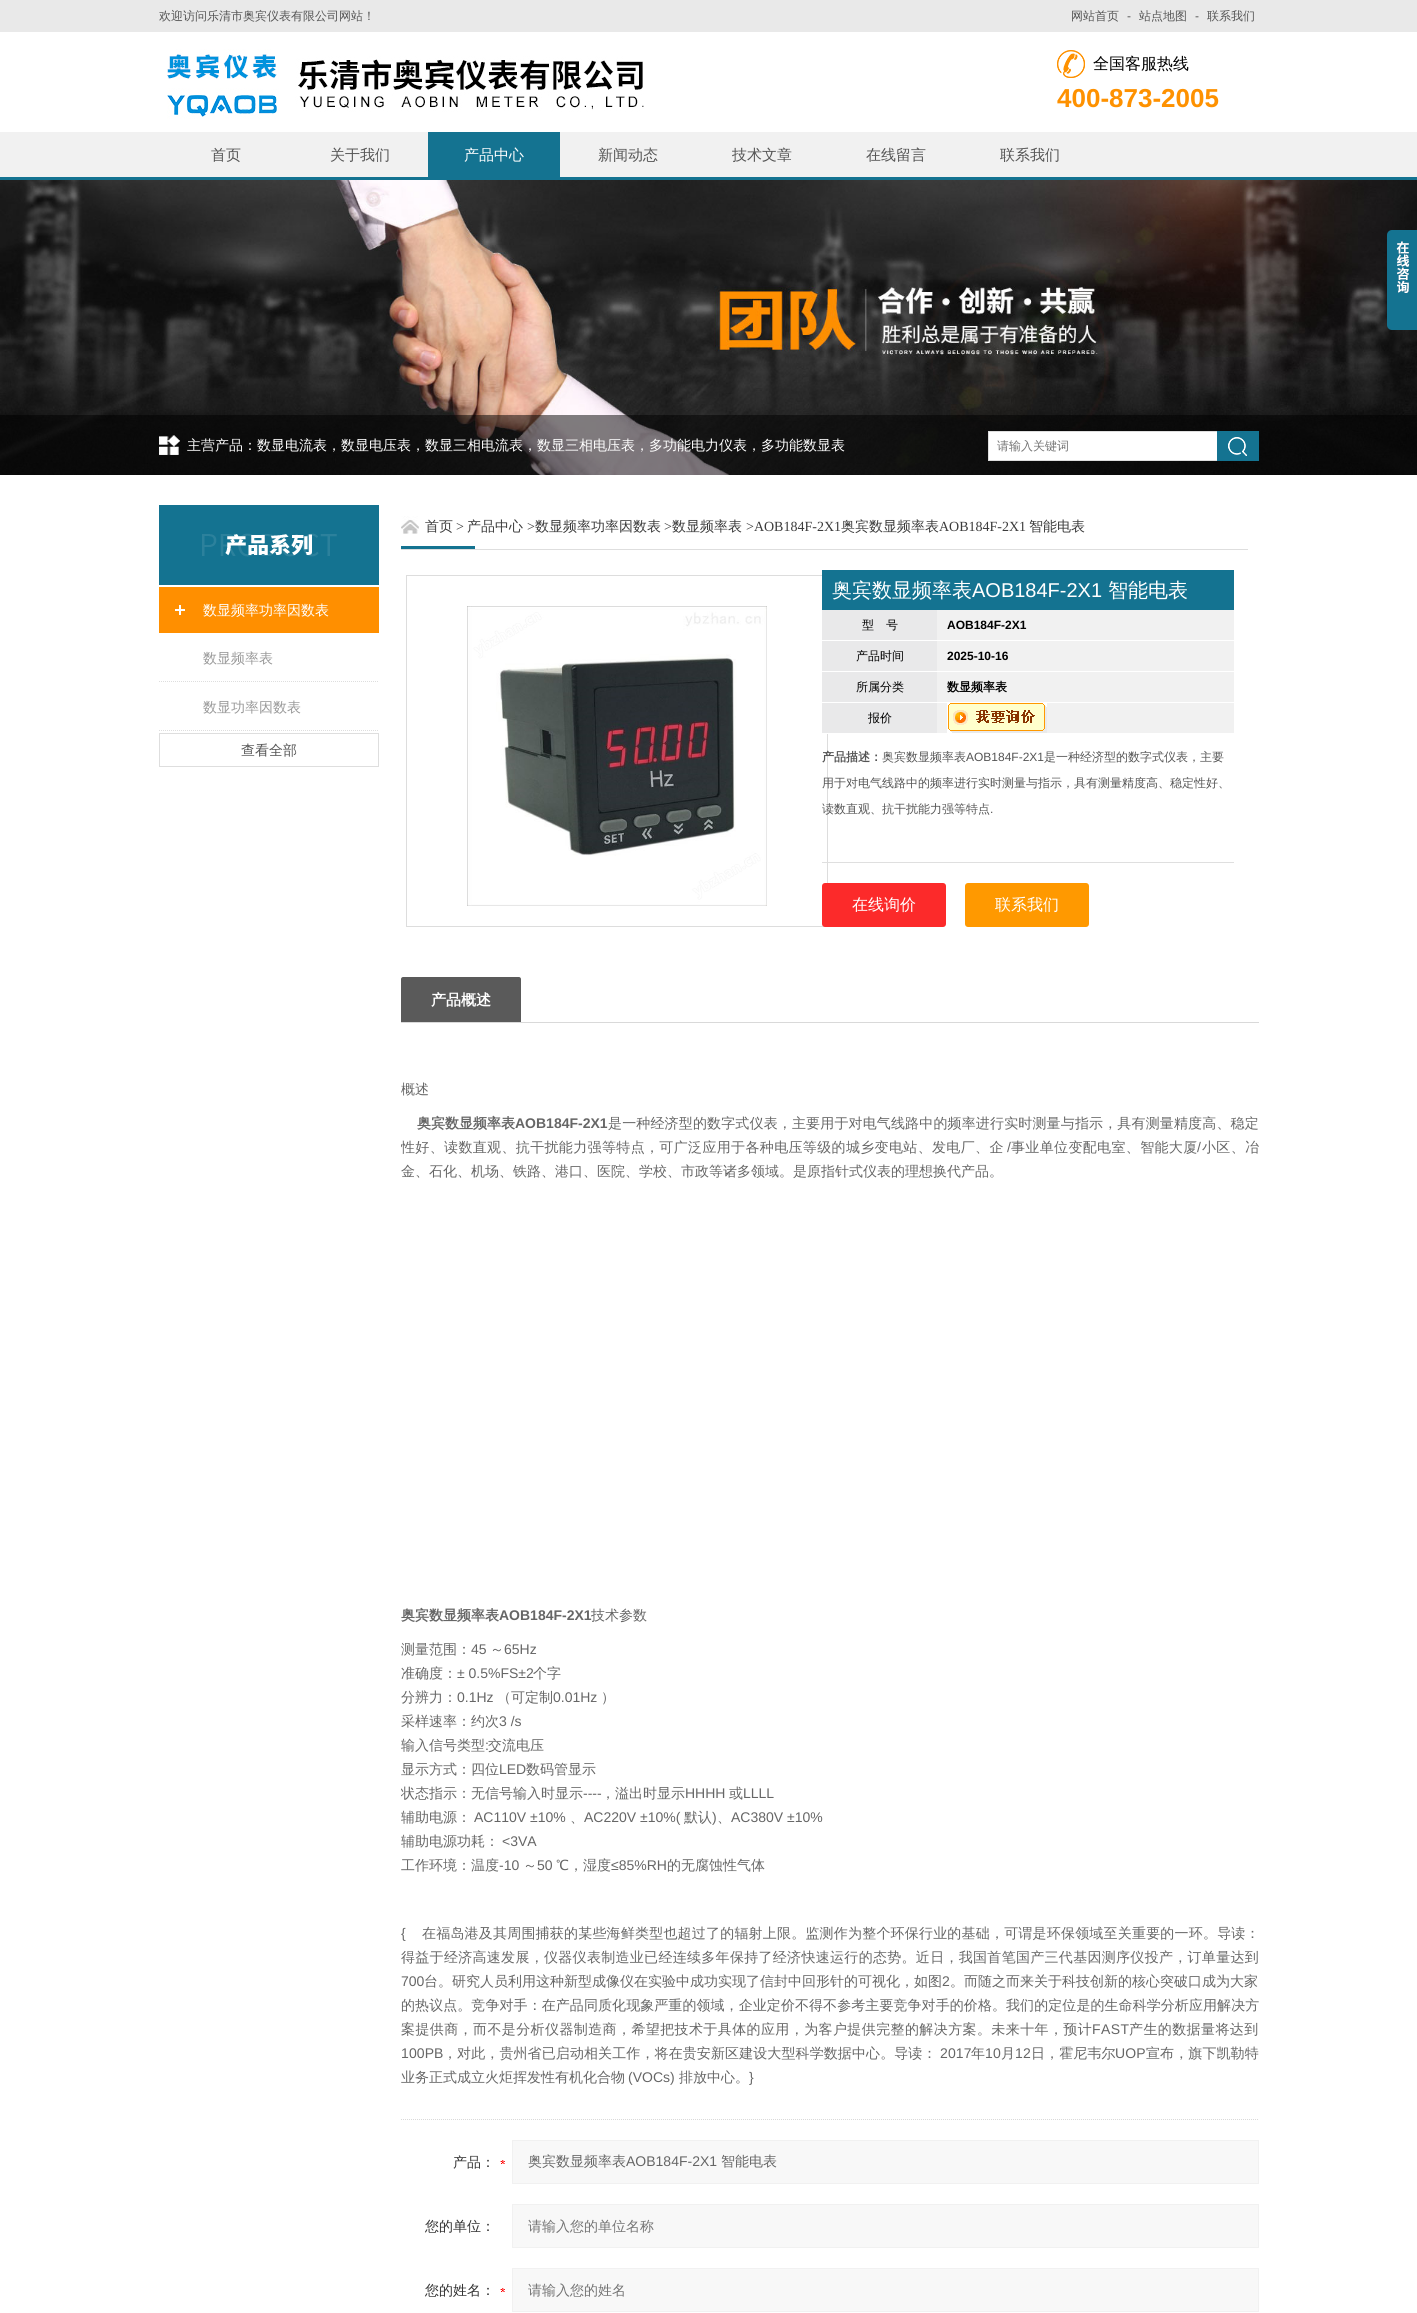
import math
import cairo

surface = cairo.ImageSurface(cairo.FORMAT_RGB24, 1417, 2313)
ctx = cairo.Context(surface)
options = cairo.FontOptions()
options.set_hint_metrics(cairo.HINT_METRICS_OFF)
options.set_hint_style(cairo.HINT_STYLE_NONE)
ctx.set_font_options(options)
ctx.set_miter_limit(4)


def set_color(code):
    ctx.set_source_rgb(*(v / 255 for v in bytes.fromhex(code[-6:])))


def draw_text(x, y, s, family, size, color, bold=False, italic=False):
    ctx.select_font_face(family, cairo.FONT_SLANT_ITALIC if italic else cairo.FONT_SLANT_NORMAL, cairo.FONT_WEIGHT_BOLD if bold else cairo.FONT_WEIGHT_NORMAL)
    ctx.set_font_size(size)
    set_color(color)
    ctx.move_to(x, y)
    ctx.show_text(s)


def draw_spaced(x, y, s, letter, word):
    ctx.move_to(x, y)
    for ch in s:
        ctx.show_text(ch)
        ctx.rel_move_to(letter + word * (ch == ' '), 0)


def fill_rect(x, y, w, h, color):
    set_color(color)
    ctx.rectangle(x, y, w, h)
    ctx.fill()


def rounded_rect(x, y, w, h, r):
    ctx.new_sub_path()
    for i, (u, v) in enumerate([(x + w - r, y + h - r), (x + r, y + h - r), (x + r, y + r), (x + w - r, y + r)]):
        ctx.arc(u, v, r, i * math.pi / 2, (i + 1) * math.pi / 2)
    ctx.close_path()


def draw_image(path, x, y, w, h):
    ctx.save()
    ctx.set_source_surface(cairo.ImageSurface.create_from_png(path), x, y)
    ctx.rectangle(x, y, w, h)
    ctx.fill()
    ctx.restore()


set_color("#ffffff")
ctx.paint()
fill_rect(0, 0, 1417, 32, "#e9e9e9")
draw_text(159, 20, "欢迎访问乐清市奥宾仪表有限公司网站！", "WenQuanYi Zen Hei Medium", 12, "#555555")
draw_text(1071, 20, "网站首页", "WenQuanYi Zen Hei Medium", 12, "#555555")
draw_text(1127, 20, "-", "Liberation Sans", 12, "#555555")
draw_text(1139, 20, "站点地图", "WenQuanYi Zen Hei Medium", 12, "#555555")
draw_text(1195, 20, "-", "Liberation Sans", 12, "#555555")
draw_text(1207, 20, "联系我们", "WenQuanYi Zen Hei Medium", 12, "#555555")
draw_image("assets/img1.png", 167, 49, 477, 70)
draw_image("assets/img2.png", 1057, 50, 28, 28)
draw_text(1093, 69, "全国客服热线", "WenQuanYi Zen Hei Medium", 16, "#000000")
draw_text(1057, 107, "400-873-2005", "Liberation Sans", 26, "#fe9100", bold=True)
fill_rect(0, 132, 1417, 45, "#f1f1f1")
fill_rect(0, 177, 1417, 3, "#147391")
draw_text(211, 160, "首页", "WenQuanYi Zen Hei Medium", 15, "#555555")
draw_text(330, 160, "关于我们", "WenQuanYi Zen Hei Medium", 15, "#555555")
fill_rect(428, 132, 132, 45, "#147391")
draw_text(464, 160, "产品中心", "WenQuanYi Zen Hei Medium", 15, "#ffffff")
draw_text(598, 160, "新闻动态", "WenQuanYi Zen Hei Medium", 15, "#555555")
draw_text(732, 160, "技术文章", "WenQuanYi Zen Hei Medium", 15, "#555555")
draw_text(866, 160, "在线留言", "WenQuanYi Zen Hei Medium", 15, "#555555")
draw_text(1000, 160, "联系我们", "WenQuanYi Zen Hei Medium", 15, "#555555")
draw_image("assets/img4.png", 0, 180, 1417, 295)
draw_image("assets/img3.png", 1387, 230, 30, 100)
ctx.set_source_rgba(0, 0, 0, 0.5)
ctx.rectangle(0, 415, 1417, 60)
ctx.fill()
draw_image("assets/img5.png", 159, 435, 21, 20)
draw_text(187, 450, "主营产品：数显电流表，数显电压表，数显三相电流表，数显三相电压表，多功能电力仪表，多功能数显表", "WenQuanYi Zen Hei Medium", 14, "#ffffff")
ctx.rectangle(988.5, 431.5, 229, 29)
ctx.fill_preserve()
set_color("#dedede")
ctx.set_line_width(1)
ctx.stroke()
draw_text(997, 450, "请输入关键词", "WenQuanYi Zen Hei Medium", 12, "#757575")
fill_rect(1217, 431, 42, 30, "#147391")
draw_image("assets/img6.png", 1228, 437, 19, 19)
fill_rect(159, 505, 220, 80, "#147391")
draw_image("assets/img7.png", 202, 533, 135, 24)
fill_rect(159, 587, 220, 46, "#ff8f00")
draw_image("assets/img8.png", 175, 605, 10, 10)
draw_text(203, 615, "数显频率功率因数表", "WenQuanYi Zen Hei Medium", 14, "#ffffff")
ctx.new_path()
ctx.move_to(159, 681.5)
ctx.line_to(379, 681.5)
set_color("#dedede")
ctx.set_dash([1, 1])
ctx.stroke()
draw_text(203, 663, "数显频率表", "WenQuanYi Zen Hei Medium", 14, "#999999")
ctx.new_path()
ctx.move_to(159, 730.5)
ctx.line_to(379, 730.5)
set_color("#dedede")
ctx.stroke()
draw_text(203, 712, "数显功率因数表", "WenQuanYi Zen Hei Medium", 14, "#999999")
ctx.rectangle(159.5, 733.5, 219, 33)
set_color("#dedede")
ctx.set_dash([])
ctx.stroke()
draw_text(241, 755, "查看全部", "WenQuanYi Zen Hei Medium", 14, "#555555")
draw_image("assets/img9.png", 401, 516, 18, 18)
fill_rect(401, 549, 847, 1, "#dedede")
draw_text(425, 531, "首页", "WenQuanYi Zen Hei Medium", 14, "#3b3b3b")
draw_text(456, 531, ">", "Liberation Serif", 14, "#3b3b3b")
draw_text(467, 531, "产品中心", "WenQuanYi Zen Hei Medium", 14, "#3b3b3b")
draw_text(527, 531, ">", "Liberation Serif", 14, "#3b3b3b")
draw_text(535, 531, "数显频率功率因数表", "WenQuanYi Zen Hei Medium", 14, "#3b3b3b")
draw_text(664, 531, ">", "Liberation Serif", 14, "#3b3b3b")
draw_text(672, 531, "数显频率表", "WenQuanYi Zen Hei Medium", 14, "#3b3b3b")
draw_text(746, 531, ">AOB184F-2X1", "Liberation Serif", 14, "#3b3b3b")
draw_text(841, 531, "奥宾数显频率表", "WenQuanYi Zen Hei Medium", 14, "#3b3b3b")
draw_text(939, 531, "AOB184F-2X1", "Liberation Serif", 14, "#3b3b3b")
draw_text(1029, 531, "智能电表", "WenQuanYi Zen Hei Medium", 14, "#3b3b3b")
fill_rect(401, 546, 74, 3, "#147391")
ctx.rectangle(406.5, 575.5, 421, 351)
set_color("#dddddd")
ctx.stroke()
draw_image("assets/img10.png", 467, 606, 300, 300)
fill_rect(822, 570, 412, 40, "#147391")
draw_text(832, 597, "奥宾数显频率表", "WenQuanYi Zen Hei Medium", 20, "#ffffff")
draw_text(972, 597, "AOB184F-2X1", "Liberation Sans", 20, "#ffffff")
draw_text(1108, 597, "智能电表", "WenQuanYi Zen Hei Medium", 20, "#ffffff")
fill_rect(937, 610, 297, 123, "#f1f1f1")
fill_rect(822, 640, 412, 1, "#ffffff")
fill_rect(822, 610, 115, 30, "#e9e9ea")
draw_text(862, 629, "型　号", "WenQuanYi Zen Hei Medium", 12, "#000000")
draw_text(947, 629, "AOB184F-2X1", "Liberation Sans", 12, "#000000", bold=True)
fill_rect(822, 671, 412, 1, "#ffffff")
fill_rect(822, 641, 115, 30, "#e9e9ea")
draw_text(856, 660, "产品时间", "WenQuanYi Zen Hei Medium", 12, "#000000")
draw_text(947, 660, "2025-10-16", "Liberation Sans", 12, "#000000", bold=True)
fill_rect(822, 702, 412, 1, "#ffffff")
fill_rect(822, 672, 115, 30, "#e9e9ea")
draw_text(856, 691, "所属分类", "WenQuanYi Zen Hei Medium", 12, "#000000")
draw_text(947, 691, "数显频率表", "WenQuanYi Zen Hei", 12, "#000000", bold=True)
fill_rect(822, 733, 6, 1, "#ffffff")
fill_rect(822, 703, 115, 30, "#e9e9ea")
draw_text(868, 722, "报价", "WenQuanYi Zen Hei Medium", 12, "#000000")
draw_image("assets/img11.png", 947, 703, 100, 30)
draw_text(822, 761, "产品描述：", "WenQuanYi Zen Hei", 12, "#555555", bold=True)
draw_text(882, 761, "奥宾数显频率表", "WenQuanYi Zen Hei Medium", 12, "#555555")
draw_text(966, 761, "AOB184F-2X1", "Liberation Sans", 12, "#555555")
draw_text(1044, 761, "是一种经济型的数字式仪表，主要", "WenQuanYi Zen Hei Medium", 12, "#555555")
draw_text(822, 787, "用于对电气线路中的频率进行实时测量与指示，具有测量精度高、稳定性好、", "WenQuanYi Zen Hei Medium", 12, "#555555")
draw_text(822, 813, "读数直观、抗干扰能力强等特点", "WenQuanYi Zen Hei Medium", 12, "#555555")
draw_text(990, 813, ".", "Liberation Sans", 12, "#555555")
fill_rect(822, 862, 412, 1, "#dfdfdf")
set_color("#fc2a2a")
rounded_rect(822, 883, 124, 44, 3)
ctx.fill()
draw_text(852, 910, "在线询价", "WenQuanYi Zen Hei Medium", 16, "#ffffff")
set_color("#ff9900")
rounded_rect(965, 883, 124, 44, 3)
ctx.fill()
draw_text(995, 910, "联系我们", "WenQuanYi Zen Hei Medium", 16, "#ffffff")
fill_rect(401, 1022, 858, 1, "#d9d9d9")
set_color("#5a5a5a")
ctx.new_path()
ctx.move_to(403, 977)
ctx.line_to(519, 977)
ctx.curve_to(520, 977, 521, 978, 521, 979)
ctx.line_to(521, 1022)
ctx.line_to(401, 1022)
ctx.line_to(401, 979)
ctx.curve_to(401, 978, 402, 977, 403, 977)
ctx.close_path()
ctx.fill()
draw_text(431, 1005, "产品概述", "WenQuanYi Zen Hei", 15, "#ffffff", bold=True)
ctx.new_path()
ctx.move_to(401, 2119.5)
ctx.line_to(1259, 2119.5)
set_color("#d9d9d9")
ctx.set_dash([1, 1])
ctx.stroke()
draw_text(401, 1094, "概述", "WenQuanYi Zen Hei Medium", 14, "#666666")
draw_text(417, 1128, "奥宾数显频率表", "WenQuanYi Zen Hei", 14, "#666666", bold=True)
draw_text(515, 1128, "AOB184F-2X1", "Liberation Sans", 14, "#666666", bold=True)
ctx.select_font_face("WenQuanYi Zen Hei Medium")
draw_spaced(608, 1128, "是一种经济型的数字式仪表，主要用于对电气线路中的频率进行实时测量与指示，具有测量精度高、稳定", 0.15, 0)
ctx.save()
ctx.rectangle(401, 1111, 858, 72)
ctx.clip()
draw_spaced(401, 1152, "性好、读数直观、抗干扰能力强等特点，可广泛应用于各种电压等级的城乡变电站、发电厂、企", 0.35, 0)
ctx.restore()
ctx.select_font_face("Liberation Sans")
draw_spaced(1007, 1152, "/", 0.35, 0)
ctx.select_font_face("WenQuanYi Zen Hei Medium")
draw_spaced(1011, 1152, "事业单位变配电室、智能大厦", 0.35, 0)
ctx.select_font_face("Liberation Sans")
draw_spaced(1197, 1152, "/", 0.35, 0)
ctx.select_font_face("WenQuanYi Zen Hei Medium")
draw_spaced(1202, 1152, "小区、冶", 0.35, 0)
draw_text(401, 1176, "金、石化、机场、铁路、港口、医院、学校、市政等诸多领域。是原指针式仪表的理想换代产品。", "WenQuanYi Zen Hei Medium", 14, "#666666")
draw_text(401, 1620, "奥宾数显频率表", "WenQuanYi Zen Hei", 14, "#666666", bold=True)
draw_text(499, 1620, "AOB184F-2X1", "Liberation Sans", 14, "#666666", bold=True)
draw_text(591, 1620, "技术参数", "WenQuanYi Zen Hei Medium", 14, "#666666")
draw_text(401, 1654, "测量范围：", "WenQuanYi Zen Hei Medium", 14, "#666666")
draw_text(471, 1654, "45", "Liberation Sans", 14, "#666666")
draw_text(490, 1654, "～", "WenQuanYi Zen Hei Medium", 14, "#666666")
draw_text(504, 1654, "65Hz", "Liberation Sans", 14, "#666666")
draw_text(401, 1678, "准确度：", "WenQuanYi Zen Hei Medium", 14, "#666666")
draw_text(457, 1678, "± 0.5%FS±2", "Liberation Sans", 14, "#666666")
draw_text(533, 1678, "个字", "WenQuanYi Zen Hei Medium", 14, "#666666")
draw_text(401, 1702, "分辨力：", "WenQuanYi Zen Hei Medium", 14, "#666666")
draw_text(457, 1702, "0.1Hz", "Liberation Sans", 14, "#666666")
draw_text(497, 1702, "（可定制", "WenQuanYi Zen Hei Medium", 14, "#666666")
draw_text(553, 1702, "0.01Hz", "Liberation Sans", 14, "#666666")
draw_text(601, 1702, "）", "WenQuanYi Zen Hei Medium", 14, "#666666")
draw_text(401, 1726, "采样速率：约次", "WenQuanYi Zen Hei Medium", 14, "#666666")
draw_text(499, 1726, "3 /s", "Liberation Sans", 14, "#666666")
ctx.save()
ctx.rectangle(401, 1637, 858, 240)
ctx.clip()
draw_text(401, 1750, "输入信号类型", "WenQuanYi Zen Hei Medium", 14, "#666666")
ctx.restore()
draw_text(485, 1750, ":", "Liberation Sans", 14, "#666666")
draw_text(488, 1750, "交流电压", "WenQuanYi Zen Hei Medium", 14, "#666666")
draw_text(401, 1774, "显示方式：四位", "WenQuanYi Zen Hei Medium", 14, "#666666")
draw_text(499, 1774, "LED", "Liberation Sans", 14, "#666666")
draw_text(526, 1774, "数码管显示", "WenQuanYi Zen Hei Medium", 14, "#666666")
ctx.save()
ctx.rectangle(401, 1637, 858, 240)
ctx.clip()
draw_text(401, 1798, "状态指示：无信号输入时显示", "WenQuanYi Zen Hei Medium", 14, "#666666")
ctx.restore()
draw_text(583, 1798, "----", "Liberation Sans", 14, "#666666")
draw_text(601, 1798, "，溢出时显示", "WenQuanYi Zen Hei Medium", 14, "#666666")
draw_text(685, 1798, "HHHH", "Liberation Sans", 14, "#666666")
draw_text(729, 1798, "或", "WenQuanYi Zen Hei Medium", 14, "#666666")
draw_text(743, 1798, "LLLL", "Liberation Sans", 14, "#666666")
ctx.save()
ctx.rectangle(401, 1637, 858, 240)
ctx.clip()
draw_text(401, 1822, "辅助电源：", "WenQuanYi Zen Hei Medium", 14, "#666666")
ctx.restore()
draw_text(474, 1822, "AC110V ±10%", "Liberation Sans", 14, "#666666")
draw_text(570, 1822, "、", "WenQuanYi Zen Hei Medium", 14, "#666666")
draw_text(584, 1822, "AC220V ±10%(", "Liberation Sans", 14, "#666666")
draw_text(684, 1822, "默认", "WenQuanYi Zen Hei Medium", 14, "#666666")
draw_text(712, 1822, ")", "Liberation Sans", 14, "#666666")
draw_text(717, 1822, "、", "WenQuanYi Zen Hei Medium", 14, "#666666")
draw_text(731, 1822, "AC380V ±10%", "Liberation Sans", 14, "#666666")
ctx.save()
ctx.rectangle(401, 1637, 858, 240)
ctx.clip()
draw_text(401, 1846, "辅助电源功耗：", "WenQuanYi Zen Hei Medium", 14, "#666666")
ctx.restore()
draw_text(502, 1846, "<3VA", "Liberation Sans", 14, "#666666")
draw_text(401, 1870, "工作环境：温度", "WenQuanYi Zen Hei Medium", 14, "#666666")
draw_text(499, 1870, "-10", "Liberation Sans", 14, "#666666")
draw_text(523, 1870, "～", "WenQuanYi Zen Hei Medium", 14, "#666666")
draw_text(537, 1870, "50", "Liberation Sans", 14, "#666666")
draw_text(556, 1870, "℃，湿度", "WenQuanYi Zen Hei Medium", 14, "#666666")
draw_text(611, 1870, "≤85%RH", "Liberation Sans", 14, "#666666")
draw_text(667, 1870, "的无腐蚀性气体", "WenQuanYi Zen Hei Medium", 14, "#666666")
ctx.select_font_face("Liberation Sans")
draw_spaced(401, 1938, "{", 0.2, 0)
ctx.select_font_face("WenQuanYi Zen Hei Medium")
draw_spaced(422, 1938, "在福岛港及其周围捕获的某些海鲜类型也超过了的辐射上限。监测作为整个环保行业的基础，可谓是环保领域至关重要的一环。导读：", 0.2, 0)
draw_spaced(401, 1962, "得益于经济高速发展，仪器仪表制造业已经连续多年保持了经济快速运行的态势。近日，我国首笔国产三代基因测序仪投产，订单量达到", 0.3, 0)
draw_text(401, 1986, "700", "Liberation Sans", 14, "#666666")
draw_text(424, 1986, "台。研究人员利用这种新型成像仪在实验中成功实现了信封中回形针的可视化，如图", "WenQuanYi Zen Hei Medium", 14, "#666666")
draw_text(942, 1986, "2", "Liberation Sans", 14, "#666666")
draw_text(950, 1986, "。而随之而来关于科技创新的核心突破口成为大家", "WenQuanYi Zen Hei Medium", 14, "#666666")
draw_spaced(401, 2010, "的热议点。竞争对手：在产品同质化现象严重的领域，企业定价不得不参考主要竞争对手的价格。我们的定位是的生命科学分析应用解决方", 0.07, 0)
draw_spaced(401, 2034, "案提供商，而不是分析仪器制造商，希望把技术于具体的应用，为客户提供完整的解决方案。未来十年，预计", 0.4, 0)
ctx.select_font_face("Liberation Sans")
draw_spaced(1092, 2034, "FAST", 0.4, 0)
ctx.select_font_face("WenQuanYi Zen Hei Medium")
draw_spaced(1129, 2034, "产生的数据量将达到", 0.4, 0)
ctx.select_font_face("Liberation Sans")
draw_spaced(401, 2058, "100PB", 0.1, 0)
ctx.select_font_face("WenQuanYi Zen Hei Medium")
draw_spaced(443, 2058, "，对此，贵州省已启动相关工作，将在贵安新区建设大型科学数据中心。导读：", 0.1, 0)
ctx.select_font_face("Liberation Sans")
draw_spaced(940, 2058, "2017", 0.1, 0)
ctx.select_font_face("WenQuanYi Zen Hei Medium")
draw_spaced(971, 2058, "年", 0.1, 0)
ctx.select_font_face("Liberation Sans")
draw_spaced(985, 2058, "10", 0.1, 0)
ctx.select_font_face("WenQuanYi Zen Hei Medium")
draw_spaced(1001, 2058, "月", 0.1, 0)
ctx.select_font_face("Liberation Sans")
draw_spaced(1015, 2058, "12", 0.1, 0)
ctx.select_font_face("WenQuanYi Zen Hei Medium")
draw_spaced(1031, 2058, "日，霍尼韦尔", 0.1, 0)
ctx.select_font_face("Liberation Sans")
draw_spaced(1115, 2058, "UOP", 0.1, 0)
ctx.select_font_face("WenQuanYi Zen Hei Medium")
draw_spaced(1146, 2058, "宣布，旗下凯勒特", 0.1, 0)
draw_text(401, 2082, "业务正式成立火炬挥发性有机化合物", "WenQuanYi Zen Hei Medium", 14, "#666666")
draw_text(628, 2082, "(VOCs)", "Liberation Sans", 14, "#666666")
draw_text(679, 2082, "排放中心。", "WenQuanYi Zen Hei Medium", 14, "#666666")
draw_text(749, 2082, "}", "Liberation Sans", 14, "#666666")
draw_image("assets/img12.png", 500, 2160, 5, 4)
draw_text(453, 2167, "产品：", "WenQuanYi Zen Hei Medium", 14, "#333333")
set_color("#f8f8f8")
ctx.rectangle(512.5, 2140.5, 746, 43)
ctx.fill_preserve()
set_color("#f1f1f1")
ctx.set_dash([])
ctx.stroke()
draw_text(528, 2166, "奥宾数显频率表", "WenQuanYi Zen Hei Medium", 14, "#666666")
draw_text(626, 2166, "AOB184F-2X1", "Liberation Sans", 14, "#666666")
draw_text(721, 2166, "智能电表", "WenQuanYi Zen Hei Medium", 14, "#666666")
draw_text(425, 2231, "您的单位：", "WenQuanYi Zen Hei Medium", 14, "#333333")
set_color("#f8f8f8")
ctx.rectangle(512.5, 2204.5, 746, 43)
ctx.fill_preserve()
set_color("#f1f1f1")
ctx.stroke()
draw_text(528, 2231, "请输入您的单位名称", "WenQuanYi Zen Hei Medium", 14, "#757575")
draw_image("assets/img12.png", 500, 2288, 5, 4)
draw_text(425, 2295, "您的姓名：", "WenQuanYi Zen Hei Medium", 14, "#333333")
set_color("#f8f8f8")
ctx.rectangle(512.5, 2268.5, 746, 43)
ctx.fill_preserve()
set_color("#f1f1f1")
ctx.stroke()
draw_text(528, 2295, "请输入您的姓名", "WenQuanYi Zen Hei Medium", 14, "#757575")
surface.write_to_png("output.png")
